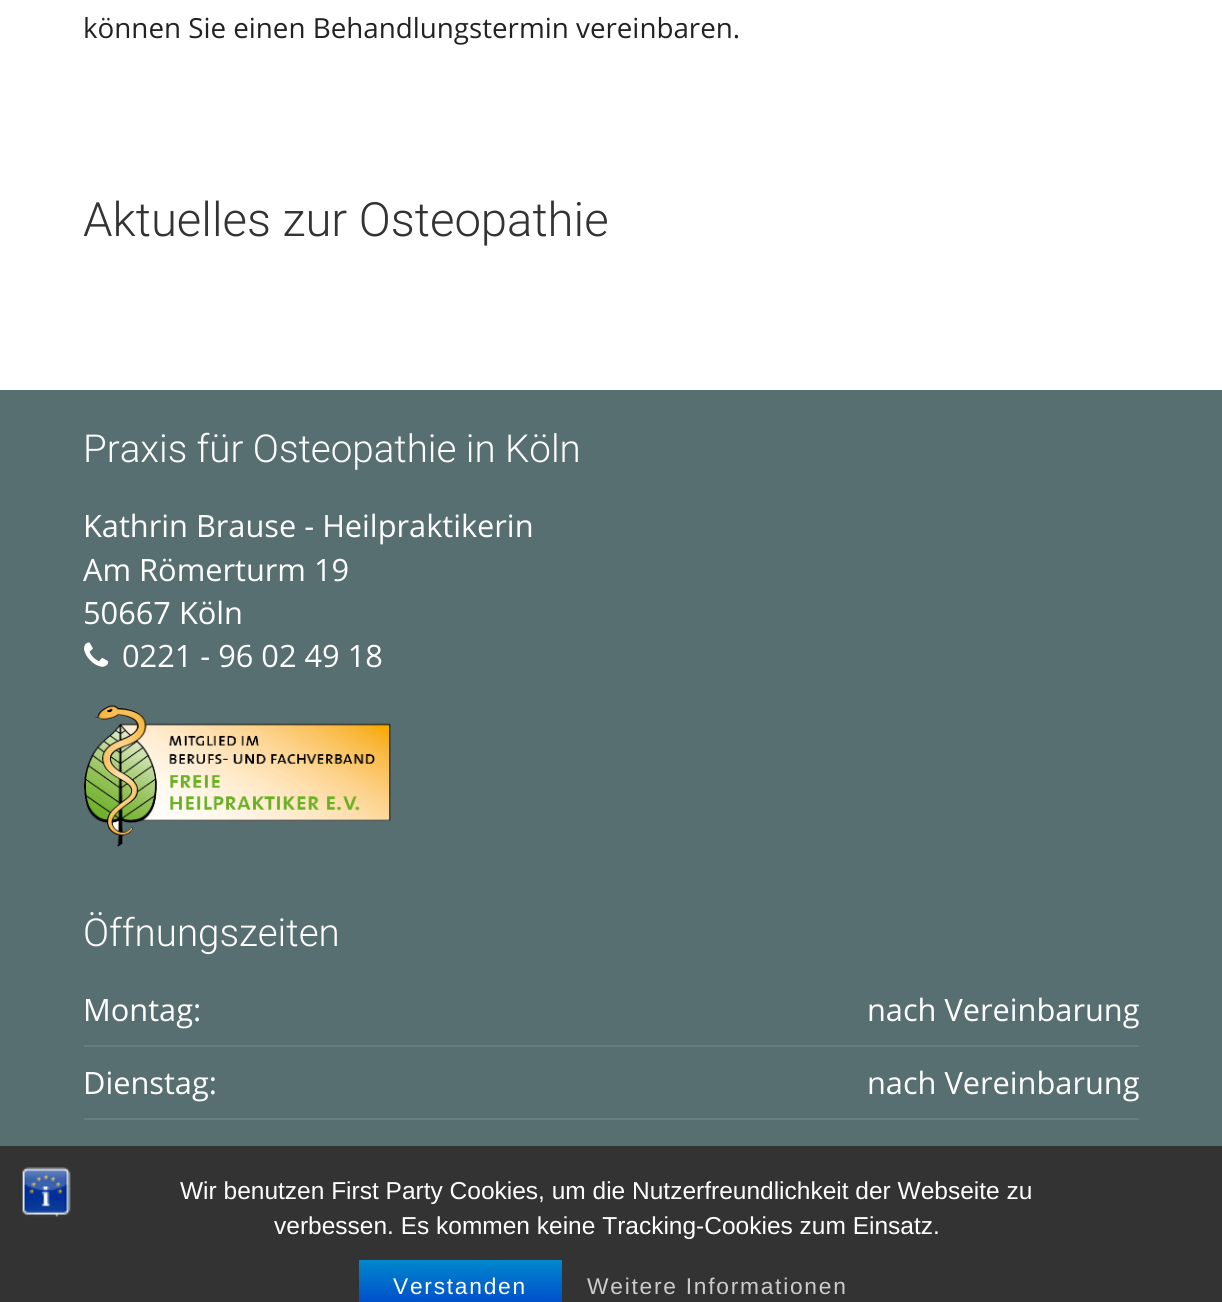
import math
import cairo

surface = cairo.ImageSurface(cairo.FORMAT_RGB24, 1222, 1302)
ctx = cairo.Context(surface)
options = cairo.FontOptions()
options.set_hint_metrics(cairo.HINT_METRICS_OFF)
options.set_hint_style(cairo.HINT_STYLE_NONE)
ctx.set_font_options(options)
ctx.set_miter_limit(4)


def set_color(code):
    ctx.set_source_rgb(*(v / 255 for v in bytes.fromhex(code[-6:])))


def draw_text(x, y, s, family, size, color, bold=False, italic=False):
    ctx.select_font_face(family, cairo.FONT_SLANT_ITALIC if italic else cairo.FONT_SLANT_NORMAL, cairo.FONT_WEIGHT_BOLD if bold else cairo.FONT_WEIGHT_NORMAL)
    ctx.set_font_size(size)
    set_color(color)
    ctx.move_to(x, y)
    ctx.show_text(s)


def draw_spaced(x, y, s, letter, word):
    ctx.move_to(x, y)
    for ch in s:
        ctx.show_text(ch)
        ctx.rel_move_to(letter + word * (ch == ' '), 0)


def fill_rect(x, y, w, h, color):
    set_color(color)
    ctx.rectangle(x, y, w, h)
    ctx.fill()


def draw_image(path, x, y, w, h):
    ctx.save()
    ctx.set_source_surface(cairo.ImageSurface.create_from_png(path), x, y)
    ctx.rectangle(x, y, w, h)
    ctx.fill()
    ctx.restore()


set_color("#ffffff")
ctx.paint()
draw_text(83, 38, "können Sie einen Behandlungstermin vereinbaren.", "Open Sans", 27.75, "#222222")
draw_text(83, 236, "Aktuelles zur Osteopathie", "Roboto Light", 47.25, "#333333")
fill_rect(0, 390, 1222, 756, "#586f72")
draw_text(83, 462, "Praxis für Osteopathie in Köln", "Roboto Light", 38.5, "#ffffff")
draw_text(83, 537, "Kathrin Brause - Heilpraktikerin", "Open Sans", 30.75, "#ffffff")
draw_text(83, 581, "Am Römerturm 19", "Open Sans", 30.75, "#ffffff")
draw_text(83, 624, "50667 Köln", "Open Sans", 30.75, "#ffffff")
draw_image("assets/img1.png", 84, 642, 25, 25)
draw_text(122, 667, "0221 - 96 02 49 18", "Open Sans", 30.75, "#ffffff")
draw_image("assets/img2.png", 84, 705, 307, 142)
draw_text(83, 946, "Öffnungszeiten", "Roboto Light", 38.5, "#ffffff")
draw_text(83, 1021, "Montag:", "Open Sans", 30.75, "#ffffff")
draw_text(867, 1021, "nach Vereinbarung", "Open Sans", 30.75, "#ffffff")
fill_rect(84, 1045, 1055, 2, "#697d80")
draw_text(83, 1094, "Dienstag:", "Open Sans", 30.75, "#ffffff")
draw_text(867, 1094, "nach Vereinbarung", "Open Sans", 30.75, "#ffffff")
fill_rect(84, 1118, 1055, 2, "#697d80")
fill_rect(0, 1146, 1222, 156, "#333333")
draw_image("assets/img3.png", 22, 1167, 49, 50)
draw_text(180, 1199, "Wir benutzen First Party Cookies, um die Nutzerfreundlichkeit der Webseite zu", "Liberation Sans", 24.5, "#ffffff")
draw_text(274, 1234, "verbessen. Es kommen keine Tracking-Cookies zum Einsatz.", "Liberation Sans", 24.5, "#ffffff")
gradient = cairo.LinearGradient(460, 1260, 460, 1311)
gradient.add_color_stop_rgba(0, 0, 0.533, 0.8, 1)
gradient.add_color_stop_rgba(1, 0, 0.267, 0.8, 1)
ctx.set_source(gradient)
ctx.rectangle(359, 1260, 203, 42)
ctx.fill()
ctx.set_font_size(22.75)
set_color("#ffffff")
draw_spaced(393, 1294, "Verstanden", 1.75, 0)
set_color("#cccccc")
draw_spaced(587, 1294, "Weitere Informationen", 1.75, 0)
surface.write_to_png("output.png")
